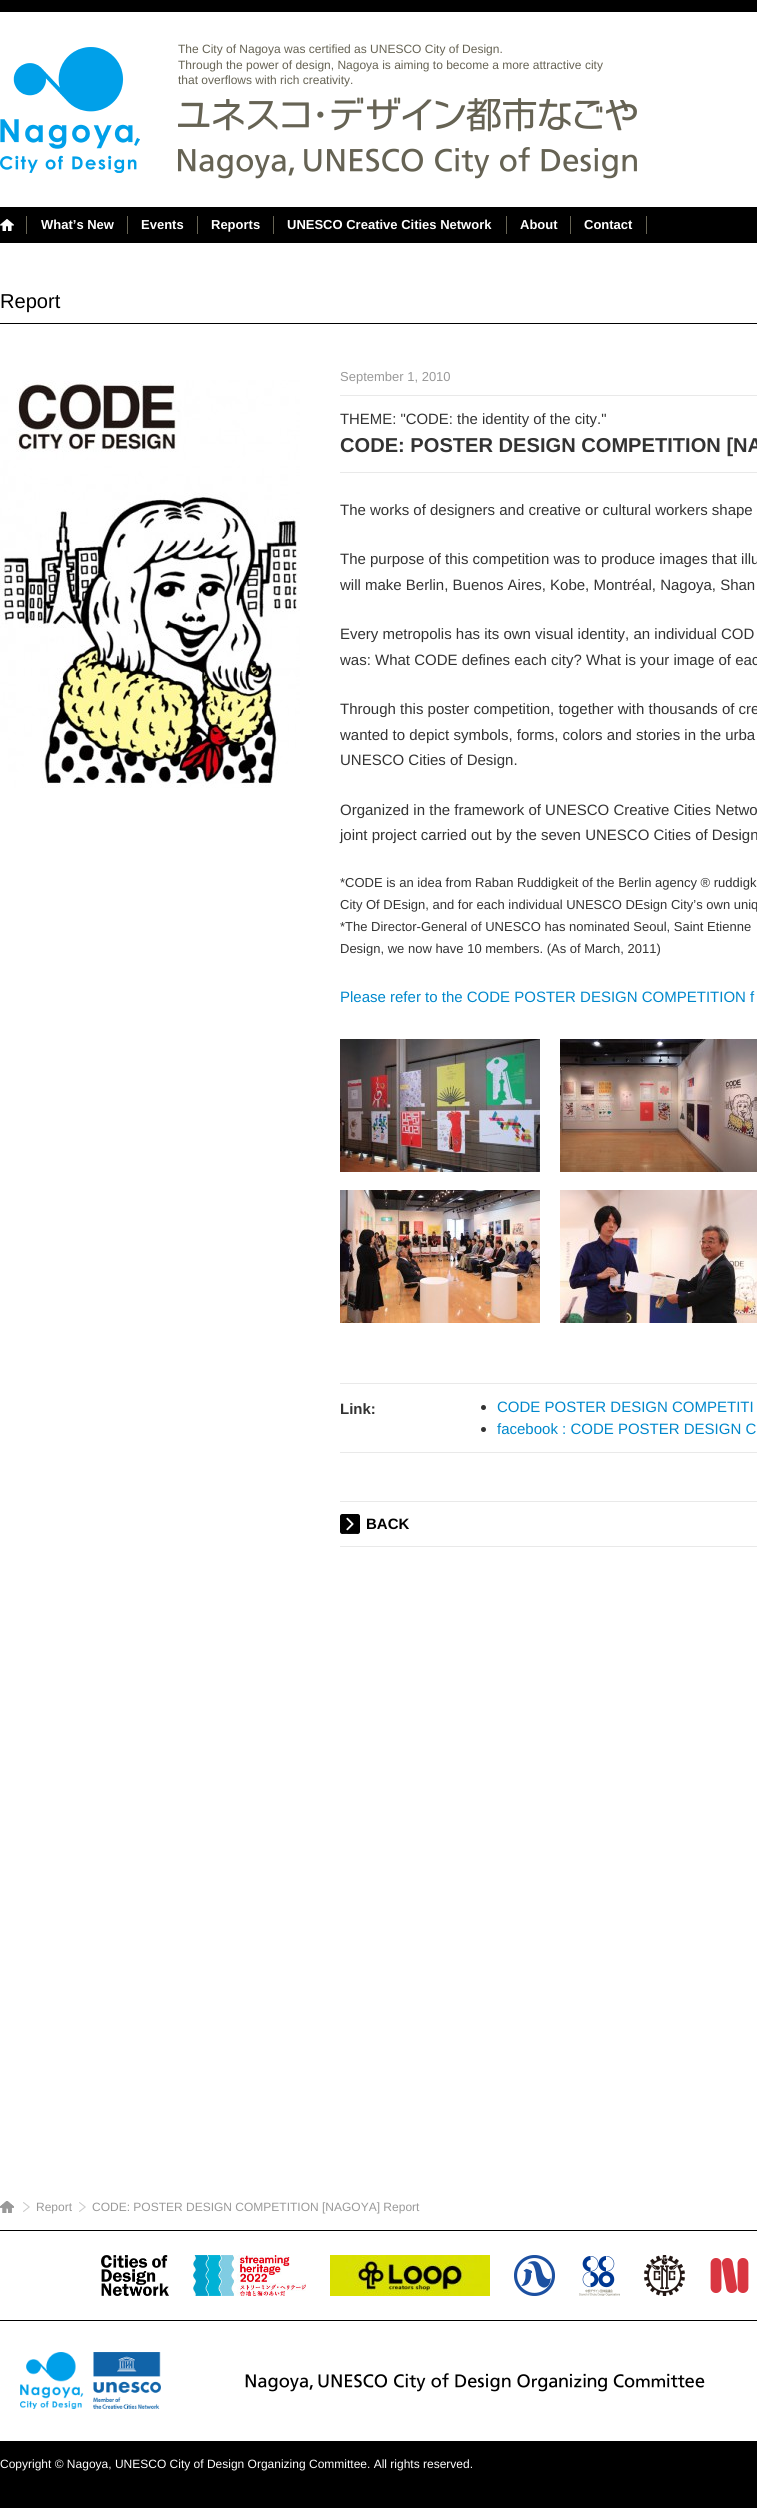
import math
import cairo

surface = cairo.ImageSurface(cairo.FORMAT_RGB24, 757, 2509)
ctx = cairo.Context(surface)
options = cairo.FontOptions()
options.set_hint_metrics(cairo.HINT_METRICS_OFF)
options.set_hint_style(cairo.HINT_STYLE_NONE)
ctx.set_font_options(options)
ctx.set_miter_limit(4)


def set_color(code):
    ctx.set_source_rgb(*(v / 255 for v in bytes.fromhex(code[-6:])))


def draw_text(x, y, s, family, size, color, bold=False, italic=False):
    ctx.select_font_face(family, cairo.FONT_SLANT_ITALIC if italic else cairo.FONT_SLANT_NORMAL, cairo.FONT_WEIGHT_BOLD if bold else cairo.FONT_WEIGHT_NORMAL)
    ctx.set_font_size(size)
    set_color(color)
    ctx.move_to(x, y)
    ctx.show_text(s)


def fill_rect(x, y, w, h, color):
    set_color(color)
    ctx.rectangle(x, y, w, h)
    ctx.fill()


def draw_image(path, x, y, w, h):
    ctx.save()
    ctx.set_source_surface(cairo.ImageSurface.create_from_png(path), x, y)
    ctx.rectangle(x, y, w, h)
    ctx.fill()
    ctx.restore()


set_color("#ffffff")
ctx.paint()
draw_image("assets/img1.png", 0, 0, 757, 243)
draw_image("assets/img2.png", 0, 47, 140, 126)
draw_text(178, 53, "The City of Nagoya was certified as UNESCO City of Design.", "Liberation Sans", 12, "#666354")
draw_text(178, 69, "Through the power of design, Nagoya is aiming to become a more attractive city", "Liberation Sans", 12, "#666354")
draw_text(178, 84, "that overflows with rich creativity.", "Liberation Sans", 12, "#666354")
draw_image("assets/img3.png", 178, 97, 459, 82)
fill_rect(26, 216, 1, 18, "#666354")
draw_image("assets/img4.png", 0, 219, 14, 12)
fill_rect(127, 216, 1, 18, "#666354")
draw_text(41, 229, "What’s New", "Liberation Sans", 13, "#ffffff", bold=True)
fill_rect(197, 216, 1, 18, "#666354")
draw_text(141, 229, "Events", "Liberation Sans", 13, "#ffffff", bold=True)
fill_rect(273, 216, 1, 18, "#666354")
draw_text(211, 229, "Reports", "Liberation Sans", 13, "#ffffff", bold=True)
fill_rect(506, 216, 1, 18, "#666354")
draw_text(287, 229, "UNESCO Creative Cities Network", "Liberation Sans", 13, "#ffffff", bold=True)
fill_rect(570, 216, 1, 18, "#666354")
draw_text(520, 229, "About", "Liberation Sans", 13, "#ffffff", bold=True)
fill_rect(646, 216, 1, 18, "#666354")
draw_text(584, 229, "Contact", "Liberation Sans", 13, "#ffffff", bold=True)
fill_rect(0, 323, 757, 1, "#000000")
draw_text(0, 308, "Report", "Liberation Sans", 20.1, "#000000")
draw_image("assets/img5.png", 0, 380, 300, 408)
fill_rect(340, 395, 417, 1, "#e9e9e9")
draw_text(340, 381, "September 1, 2010", "Liberation Sans", 13, "#999999")
fill_rect(340, 472, 417, 1, "#e9e9e9")
draw_text(340, 424, "THEME: \"CODE: the identity of the city.\"", "Liberation Sans", 14.9, "#333333")
draw_text(340, 452, "CODE: POSTER DESIGN COMPETITION [NA", "Liberation Sans", 20.1, "#333333", bold=True)
draw_text(340, 515, "The works of designers and creative or cultural workers shape", "Liberation Sans", 15, "#333333")
draw_text(340, 564, "The purpose of this competition was to produce images that illu", "Liberation Sans", 15, "#333333")
draw_text(340, 590, "will make Berlin, Buenos Aires, Kobe, Montréal, Nagoya, Shan", "Liberation Sans", 15, "#333333")
draw_text(340, 639, "Every metropolis has its own visual identity, an individual COD", "Liberation Sans", 15, "#333333")
draw_text(340, 665, "was: What CODE defines each city? What is your image of eac", "Liberation Sans", 15, "#333333")
draw_text(340, 714, "Through this poster competition, together with thousands of cre", "Liberation Sans", 15, "#333333")
draw_text(340, 740, "wanted to depict symbols, forms, colors and stories in the urba", "Liberation Sans", 15, "#333333")
draw_text(340, 765, "UNESCO Cities of Design.", "Liberation Sans", 15, "#333333")
draw_text(340, 815, "Organized in the framework of UNESCO Creative Cities Netwo", "Liberation Sans", 15, "#333333")
draw_text(340, 840, "joint project carried out by the seven UNESCO Cities of Design", "Liberation Sans", 15, "#333333")
draw_text(340, 887, "*CODE is an idea from Raban Ruddigkeit of the Berlin agency ® ruddigk", "Liberation Sans", 13, "#333333")
draw_text(340, 909, "City Of DEsign, and for each individual UNESCO DEsign City’s own uniq", "Liberation Sans", 13, "#333333")
draw_text(340, 931, "*The Director-General of UNESCO has nominated Seoul, Saint Etienne", "Liberation Sans", 13, "#333333")
draw_text(340, 953, "Design, we now have 10 members. (As of March, 2011)", "Liberation Sans", 13, "#333333")
draw_text(340, 1002, "Please refer to the CODE POSTER DESIGN COMPETITION f", "Liberation Sans", 15, "#0088cc")
draw_image("assets/img6.png", 340, 1039, 200, 133)
draw_image("assets/img7.png", 560, 1039, 197, 133)
draw_image("assets/img8.png", 340, 1190, 200, 133)
draw_image("assets/img9.png", 560, 1190, 197, 133)
fill_rect(340, 1452, 417, 1, "#e9e9e9")
draw_text(340, 1414, "Link:", "Liberation Sans", 15, "#333333", bold=True)
fill_rect(340, 1383, 417, 1, "#e9e9e9")
set_color("#333333")
ctx.new_path()
ctx.arc(483.5, 1407.5, 2.5, 0, 2 * math.pi)
ctx.fill()
draw_text(497, 1412, "CODE POSTER DESIGN COMPETITI", "Liberation Sans", 15, "#0088cc")
set_color("#333333")
ctx.new_path()
ctx.arc(483.5, 1429.5, 2.5, 0, 2 * math.pi)
ctx.fill()
draw_text(497, 1434, "facebook : CODE POSTER DESIGN C", "Liberation Sans", 15, "#0088cc")
fill_rect(340, 1501, 417, 1, "#e9e9e9")
fill_rect(340, 1546, 417, 1, "#e9e9e9")
draw_image("assets/img10.png", 340, 1514, 20, 20)
draw_text(366, 1529, "BACK", "Liberation Sans", 15, "#000000", bold=True)
fill_rect(0, 2441, 757, 67, "#000000")
draw_image("assets/img11.png", 0, 2201, 14, 12)
draw_image("assets/img12.png", 0, 2201, 14, 12)
draw_image("assets/img13.png", 23, 2202, 7, 10)
draw_text(36, 2211, "Report", "Liberation Sans", 12, "#999999")
draw_image("assets/img13.png", 79, 2202, 7, 10)
draw_text(92, 2211, "CODE: POSTER DESIGN COMPETITION [NAGOYA] Report", "Liberation Sans", 12, "#999999")
fill_rect(0, 2230, 757, 1, "#000000")
fill_rect(0, 2320, 757, 1, "#000000")
draw_image("assets/img14.png", 101, 2255, 68, 41)
draw_image("assets/img15.png", 193, 2255, 113, 41)
draw_image("assets/img16.png", 330, 2255, 160, 41)
draw_image("assets/img17.png", 514, 2255, 41, 41)
draw_image("assets/img18.png", 579, 2256, 41, 40)
draw_image("assets/img19.png", 644, 2255, 41, 41)
draw_image("assets/img20.png", 710, 2258, 39, 35)
draw_image("assets/img21.png", 20, 2352, 141, 57)
draw_image("assets/img22.png", 245, 2373, 460, 19)
draw_text(0, 2468, "Copyright © Nagoya, UNESCO City of Design Organizing Committee. All rights reserved.", "Liberation Sans", 12, "#ffffff")
surface.write_to_png("output.png")
